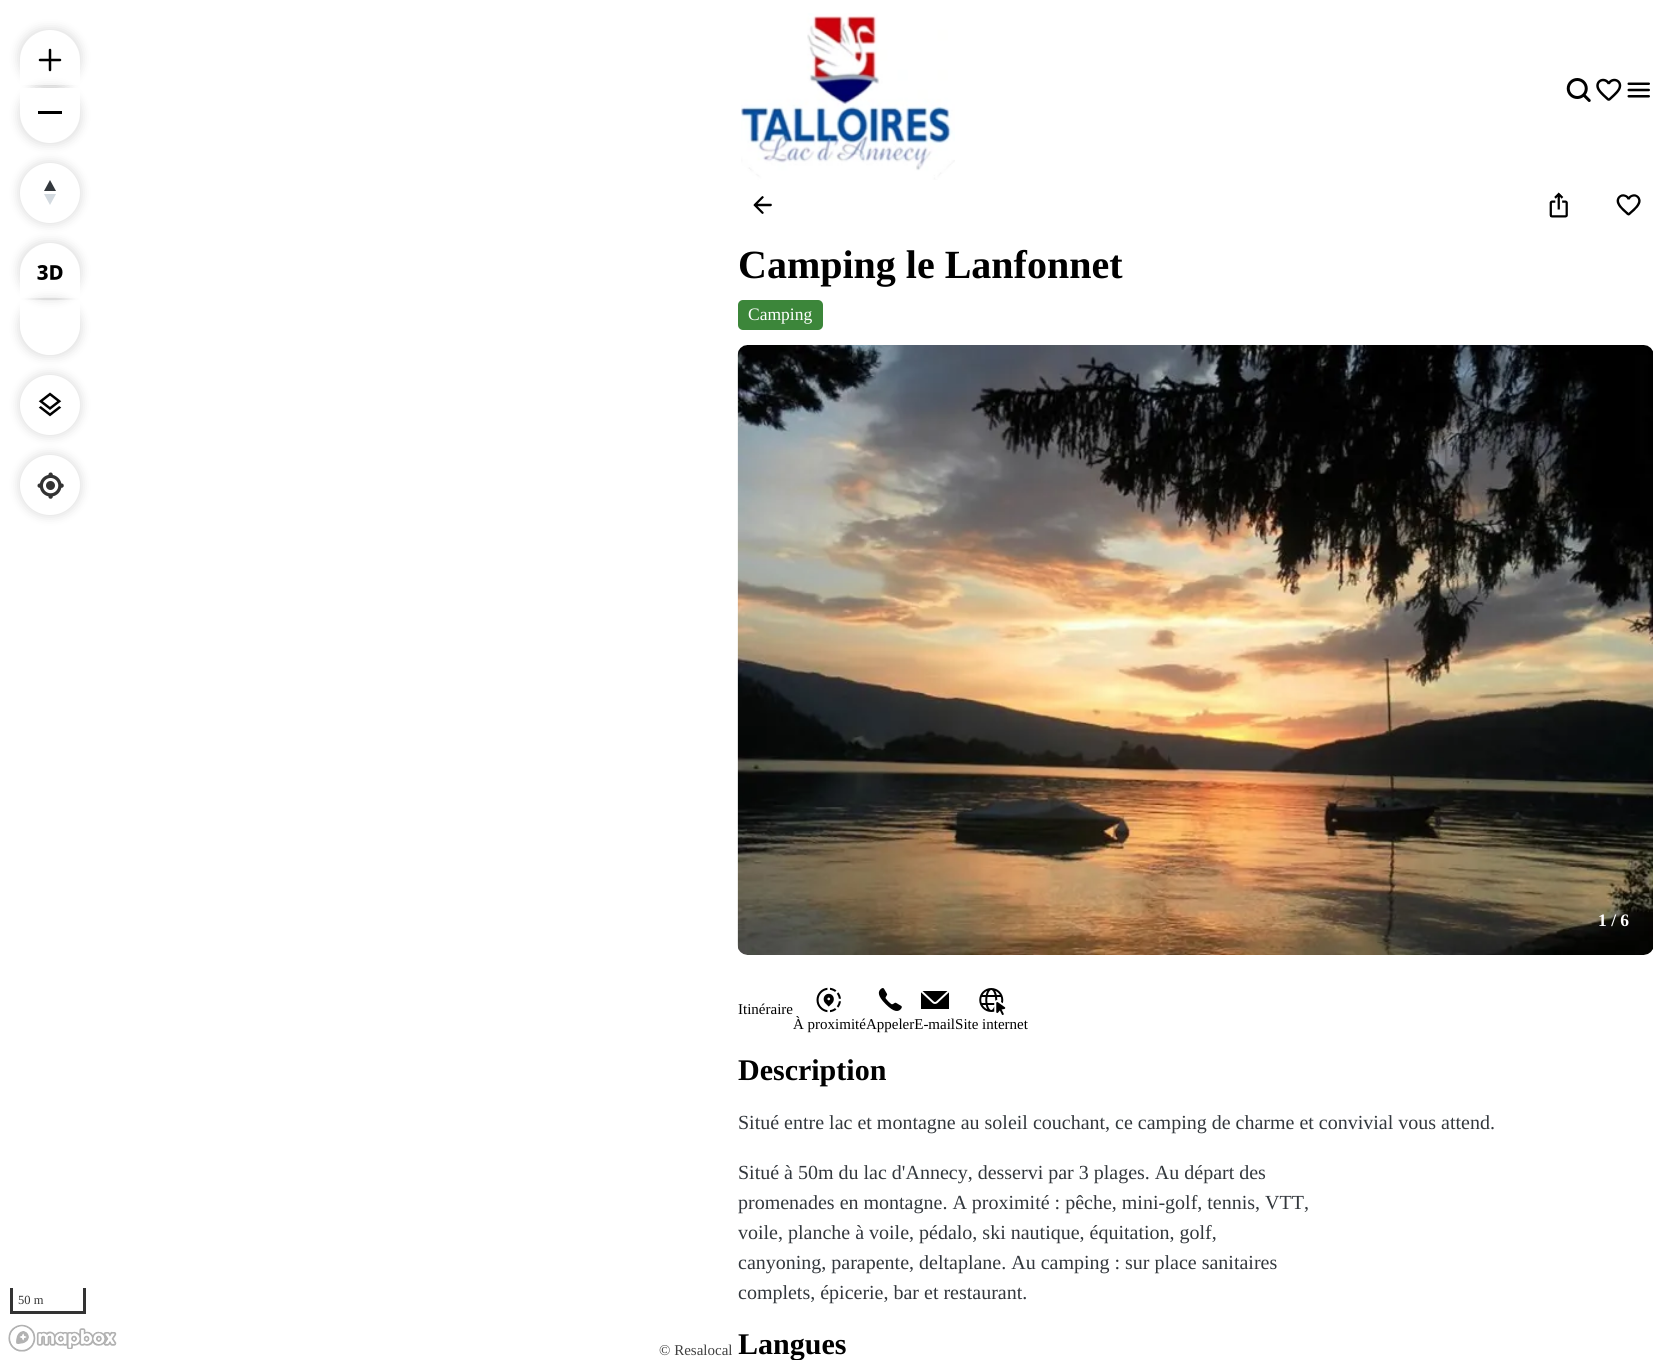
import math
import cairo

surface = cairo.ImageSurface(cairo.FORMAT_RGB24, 1653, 1360)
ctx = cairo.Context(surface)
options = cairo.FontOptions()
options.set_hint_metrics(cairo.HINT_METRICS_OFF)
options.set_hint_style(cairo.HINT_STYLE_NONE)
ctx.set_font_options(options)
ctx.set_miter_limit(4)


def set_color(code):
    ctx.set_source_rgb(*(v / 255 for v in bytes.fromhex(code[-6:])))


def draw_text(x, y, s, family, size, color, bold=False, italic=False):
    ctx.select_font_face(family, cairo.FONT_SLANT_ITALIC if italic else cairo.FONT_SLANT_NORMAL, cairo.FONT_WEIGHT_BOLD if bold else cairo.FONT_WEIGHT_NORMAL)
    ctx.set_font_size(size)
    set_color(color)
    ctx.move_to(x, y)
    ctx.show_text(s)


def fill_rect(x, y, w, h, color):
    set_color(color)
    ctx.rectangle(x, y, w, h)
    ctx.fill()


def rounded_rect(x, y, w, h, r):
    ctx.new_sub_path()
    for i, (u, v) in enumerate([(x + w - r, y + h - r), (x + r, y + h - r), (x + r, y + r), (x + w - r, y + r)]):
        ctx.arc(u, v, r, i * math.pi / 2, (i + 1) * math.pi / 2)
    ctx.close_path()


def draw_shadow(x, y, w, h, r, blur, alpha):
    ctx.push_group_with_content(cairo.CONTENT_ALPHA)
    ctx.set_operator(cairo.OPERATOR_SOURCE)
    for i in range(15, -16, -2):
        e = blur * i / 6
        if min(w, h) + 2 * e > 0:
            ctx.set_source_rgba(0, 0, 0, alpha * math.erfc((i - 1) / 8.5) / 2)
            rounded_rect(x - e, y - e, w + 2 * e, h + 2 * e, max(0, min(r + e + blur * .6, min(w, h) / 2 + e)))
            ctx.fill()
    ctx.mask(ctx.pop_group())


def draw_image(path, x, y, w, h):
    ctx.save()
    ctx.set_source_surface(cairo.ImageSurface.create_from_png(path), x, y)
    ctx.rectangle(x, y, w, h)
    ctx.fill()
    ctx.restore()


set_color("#ffffff")
ctx.paint()
set_color("#000000")
draw_shadow(20, 30, 60, 55, 30, 6, 0.16)
set_color("#ffffff")
ctx.new_path()
ctx.move_to(50, 30)
ctx.curve_to(66.5, 30, 80, 43.5, 80, 60)
ctx.line_to(80, 85)
ctx.line_to(20, 85)
ctx.line_to(20, 60)
ctx.curve_to(20, 43.5, 33.5, 30, 50, 30)
ctx.close_path()
ctx.fill()
draw_image("assets/img1.png", 38, 48, 24, 24)
set_color("#000000")
draw_shadow(20, 88, 60, 55, 30, 6, 0.16)
set_color("#ffffff")
ctx.new_path()
ctx.move_to(20, 88)
ctx.line_to(80, 88)
ctx.line_to(80, 113)
ctx.curve_to(80, 129.5, 66.5, 143, 50, 143)
ctx.curve_to(33.5, 143, 20, 129.5, 20, 113)
ctx.close_path()
ctx.fill()
fill_rect(38, 111, 24, 3, "#000000")
set_color("#000000")
draw_shadow(20, 163, 60, 60, 30, 6, 0.16)
set_color("#ffffff")
ctx.arc(50, 193, 30, 0, 2 * math.pi)
ctx.fill()
set_color("#33383d")
ctx.new_path()
ctx.move_to(44, 191)
ctx.line_to(50, 180)
ctx.line_to(56, 191)
ctx.close_path()
ctx.fill()
set_color("#d3dae0")
ctx.new_path()
ctx.move_to(44, 194)
ctx.line_to(50, 205)
ctx.line_to(56, 194)
ctx.close_path()
ctx.fill()
set_color("#000000")
draw_shadow(20, 243, 60, 55, 30, 6, 0.16)
set_color("#ffffff")
ctx.new_path()
ctx.move_to(50, 243)
ctx.curve_to(66.5, 243, 80, 256.5, 80, 273)
ctx.line_to(80, 298)
ctx.line_to(20, 298)
ctx.line_to(20, 273)
ctx.curve_to(20, 256.5, 33.5, 243, 50, 243)
ctx.close_path()
ctx.fill()
draw_image("assets/img2.png", 37, 265, 26, 15)
ctx.save()
ctx.set_fill_rule(cairo.FILL_RULE_EVEN_ODD)
ctx.new_path()
ctx.move_to(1, 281)
ctx.line_to(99, 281)
ctx.line_to(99, 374)
ctx.line_to(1, 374)
ctx.close_path()
ctx.move_to(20, 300)
ctx.line_to(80, 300)
ctx.line_to(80, 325)
ctx.curve_to(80, 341.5, 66.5, 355, 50, 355)
ctx.curve_to(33.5, 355, 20, 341.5, 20, 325)
ctx.close_path()
ctx.clip()
set_color("#000000")
draw_shadow(20, 300, 60, 55, 30, 6, 0.16)
ctx.restore()
set_color("#000000")
draw_shadow(20, 375, 60, 60, 30, 6, 0.16)
set_color("#ffffff")
ctx.arc(50, 405, 30, 0, 2 * math.pi)
ctx.fill()
draw_image("assets/img3.png", 38, 392, 24, 25)
set_color("#000000")
draw_shadow(20, 455, 60, 60, 30, 6, 0.16)
set_color("#ffffff")
ctx.arc(50, 485, 30, 0, 2 * math.pi)
ctx.fill()
draw_image("assets/img4.png", 37, 472, 27, 27)
fill_rect(83, 1288, 3, 26, "#333333")
fill_rect(10, 1311, 75, 3, "#333333")
fill_rect(10, 1288, 3, 26, "#333333")
draw_text(18, 1304, "50 m", "Liberation Serif", 12.5, "#333333")
draw_text(738, 1354, "Langues", "Liberation Serif", 30, "#000000", bold=True)
ctx.set_source_rgba(1, 1, 1, 0.5)
ctx.rectangle(738, 1352, 1, 2)
ctx.fill()
draw_text(659, 1355, "© Resalocal", "Liberation Serif", 15, "#404040")
draw_image("assets/img5.png", 8, 1324, 109, 28)
draw_image("assets/img6.png", 741, 13, 214, 167)
draw_image("assets/img7.png", 1566, 78, 25, 24)
draw_image("assets/img8.png", 1596, 78, 26, 23)
draw_image("assets/img9.png", 1627, 82, 23, 16)
draw_image("assets/img10.png", 753, 196, 19, 18)
draw_image("assets/img11.png", 1549, 192, 19, 26)
draw_image("assets/img12.png", 1616, 194, 25, 22)
draw_text(738, 278, "Camping le Lanfonnet", "Liberation Serif", 40, "#000000", bold=True)
set_color("#3c863a")
rounded_rect(738, 300, 85, 30, 5)
ctx.fill()
draw_text(748, 320, "Camping", "Liberation Serif", 17.5, "#ffffff")
draw_image("assets/img13.png", 737, 345, 916, 610)
draw_text(1598, 926, "1 / 6", "Liberation Serif", 17.5, "#ffffff", bold=True)
draw_text(738, 1014, "Itinéraire", "Liberation Serif", 15, "#000000")
draw_image("assets/img14.png", 878, 988, 24, 23)
draw_image("assets/img15.png", 921, 991, 28, 18)
draw_image("assets/img16.png", 979, 988, 27, 27)
draw_image("assets/img17.png", 816, 987, 25, 26)
draw_text(793, 1029, "À proximitéAppelerE-mailSite internet", "Liberation Serif", 15, "#000000")
draw_text(738, 1080, "Description", "Liberation Serif", 30, "#000000", bold=True)
draw_text(738, 1129, "Situé entre lac et montagne au soleil couchant, ce camping de charme et convivial vous attend.", "Liberation Serif", 20, "#33383d")
draw_text(738, 1179, "Situé à 50m du lac d'Annecy, desservi par 3 plages. Au départ des", "Liberation Serif", 20, "#33383d")
draw_text(738, 1209, "promenades en montagne. A proximité : pêche, mini-golf, tennis, VTT,", "Liberation Serif", 20, "#33383d")
draw_text(738, 1239, "voile, planche à voile, pédalo, ski nautique, équitation, golf,", "Liberation Serif", 20, "#33383d")
draw_text(738, 1269, "canyoning, parapente, deltaplane. Au camping : sur place sanitaires", "Liberation Serif", 20, "#33383d")
draw_text(738, 1299, "complets, épicerie, bar et restaurant.", "Liberation Serif", 20, "#33383d")
surface.write_to_png("output.png")
